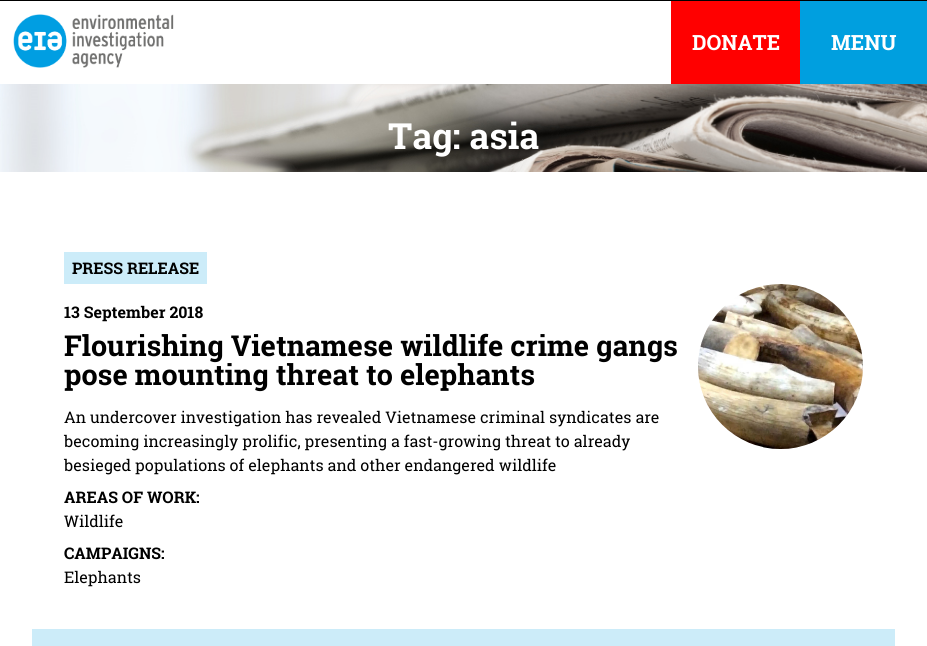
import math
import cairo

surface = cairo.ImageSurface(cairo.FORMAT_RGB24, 927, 646)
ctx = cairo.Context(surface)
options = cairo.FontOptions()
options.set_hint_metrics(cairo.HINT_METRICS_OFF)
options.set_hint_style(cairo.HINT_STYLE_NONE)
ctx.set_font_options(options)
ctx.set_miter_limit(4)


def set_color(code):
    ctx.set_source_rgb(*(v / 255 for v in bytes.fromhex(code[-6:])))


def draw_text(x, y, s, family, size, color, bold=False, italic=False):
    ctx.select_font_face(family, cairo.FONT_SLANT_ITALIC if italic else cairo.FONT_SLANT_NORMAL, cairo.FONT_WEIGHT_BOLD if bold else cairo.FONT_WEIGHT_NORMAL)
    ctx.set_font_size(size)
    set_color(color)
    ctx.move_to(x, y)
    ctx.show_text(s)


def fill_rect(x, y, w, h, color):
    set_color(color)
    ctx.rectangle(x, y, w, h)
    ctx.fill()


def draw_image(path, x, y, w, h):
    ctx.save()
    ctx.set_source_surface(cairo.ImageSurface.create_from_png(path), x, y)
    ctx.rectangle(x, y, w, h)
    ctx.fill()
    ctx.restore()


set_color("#ffffff")
ctx.paint()
fill_rect(0, 0, 927, 1, "#000000")
draw_image("assets/img1.png", 13, 14, 161, 54)
fill_rect(671, 1, 129, 83, "#ff0000")
draw_text(692, 50, "DONATE", "Roboto Slab", 21, "#ffffff", bold=True)
fill_rect(800, 1, 127, 83, "#009fdf")
draw_text(831, 50, "MENU", "Roboto Slab", 21, "#ffffff", bold=True)
draw_image("assets/img2.png", 0, 84, 927, 88)
draw_text(388, 149, "Tag: asia", "Roboto Slab", 36, "#ffffff", bold=True)
fill_rect(64, 252, 143, 32, "#ccecf9")
draw_text(72, 274, "PRESS RELEASE", "Roboto Slab", 16, "#000000", bold=True)
draw_text(64, 318, "13 September 2018", "Roboto Slab", 16, "#000000", bold=True)
draw_text(64, 356, "Flourishing Vietnamese wildlife crime gangs", "Roboto Slab", 28.8, "#000000", bold=True)
draw_text(64, 385, "pose mounting threat to elephants", "Roboto Slab", 28.8, "#000000", bold=True)
draw_text(64, 423, "An undercover investigation has revealed Vietnamese criminal syndicates are", "Roboto Slab", 16, "#000000")
draw_text(64, 447, "becoming increasingly prolific, presenting a fast-growing threat to already", "Roboto Slab", 16, "#000000")
draw_text(64, 471, "besieged populations of elephants and other endangered wildlife", "Roboto Slab", 16, "#000000")
draw_text(64, 503, "AREAS OF WORK:", "Roboto Slab", 16, "#000000", bold=True)
draw_text(64, 527, "Wildlife", "Roboto Slab", 16, "#000000")
draw_text(64, 559, "CAMPAIGNS:", "Roboto Slab", 16, "#000000", bold=True)
draw_text(64, 583, "Elephants", "Roboto Slab", 16, "#000000")
draw_image("assets/img3.png", 698, 284, 165, 165)
fill_rect(32, 629, 863, 17, "#ccecf9")
surface.write_to_png("output.png")
